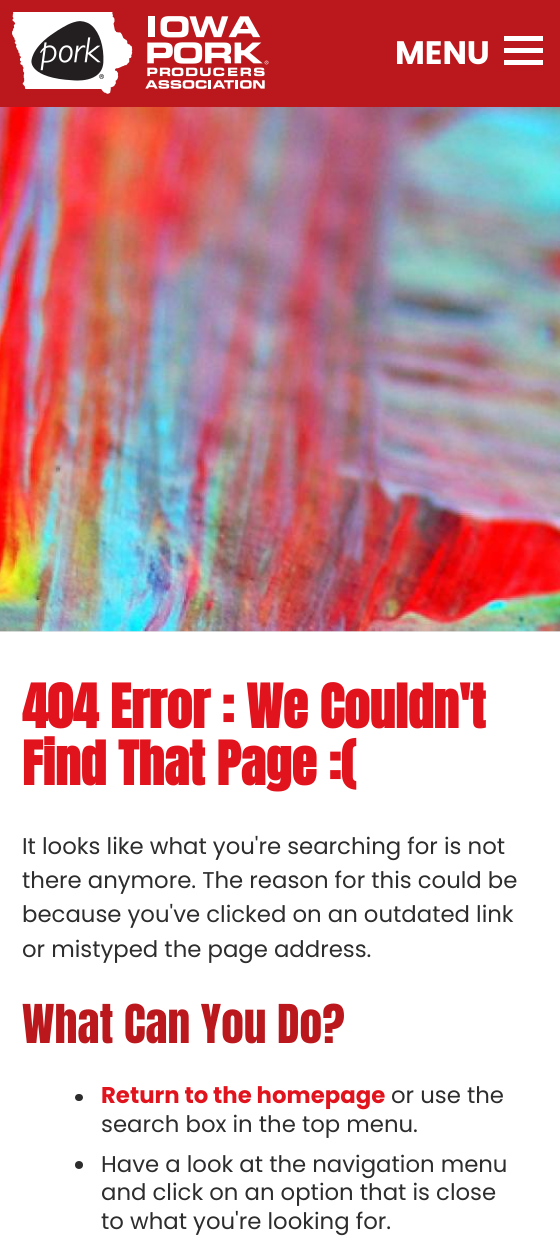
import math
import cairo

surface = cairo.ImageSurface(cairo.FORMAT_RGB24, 560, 1257)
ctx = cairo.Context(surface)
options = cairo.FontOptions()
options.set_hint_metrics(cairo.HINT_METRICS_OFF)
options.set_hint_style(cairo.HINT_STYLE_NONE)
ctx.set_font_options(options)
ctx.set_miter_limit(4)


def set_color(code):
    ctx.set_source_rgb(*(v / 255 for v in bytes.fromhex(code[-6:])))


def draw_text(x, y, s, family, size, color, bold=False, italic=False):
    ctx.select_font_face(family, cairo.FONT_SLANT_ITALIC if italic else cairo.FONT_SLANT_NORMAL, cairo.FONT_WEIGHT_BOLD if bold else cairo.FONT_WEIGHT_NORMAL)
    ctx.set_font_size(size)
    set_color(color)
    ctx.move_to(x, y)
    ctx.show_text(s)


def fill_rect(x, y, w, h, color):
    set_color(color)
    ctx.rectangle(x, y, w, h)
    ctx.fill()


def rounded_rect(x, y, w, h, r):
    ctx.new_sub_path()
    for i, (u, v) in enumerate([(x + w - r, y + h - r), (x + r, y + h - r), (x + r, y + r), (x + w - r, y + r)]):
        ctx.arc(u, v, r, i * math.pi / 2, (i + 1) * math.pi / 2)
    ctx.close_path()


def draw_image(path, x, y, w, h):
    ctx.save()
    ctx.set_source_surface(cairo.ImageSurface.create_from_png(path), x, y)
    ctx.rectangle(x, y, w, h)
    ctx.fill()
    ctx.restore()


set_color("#ffffff")
ctx.paint()
fill_rect(0, 0, 560, 107, "#bb181d")
draw_image("assets/img1.png", 12, 12, 257, 82)
draw_text(395, 64, "MENU", "Poppins", 32.5, "#ffffff", bold=True)
fill_rect(504, 36, 39, 5, "#ffffff")
fill_rect(504, 48, 39, 5, "#ffffff")
fill_rect(504, 60, 39, 5, "#ffffff")
fill_rect(0, 631, 560, 1, "#e9e9e9")
draw_image("assets/img2.png", 0, 107, 560, 525)
draw_text(22, 728, "404 Error : We Couldn't", "Anton", 51.25, "#e1141e", bold=True)
draw_text(22, 785, "Find That Page :(", "Anton", 51.25, "#e1141e", bold=True)
draw_text(22, 854, "It looks like what you're searching for is not", "Poppins", 22.8, "#2d2d2d")
draw_text(22, 888, "there anymore. The reason for this could be", "Poppins", 22.8, "#2d2d2d")
draw_text(22, 922, "because you've clicked on an outdated link", "Poppins", 22.8, "#2d2d2d")
draw_text(22, 957, "or mistyped the page address.", "Poppins", 22.8, "#2d2d2d")
draw_text(22, 1043, "What Can You Do?", "Anton", 45.5, "#bb181d")
set_color("#2d2d2d")
rounded_rect(75, 1094, 8, 7, 3.5)
ctx.fill()
draw_text(101, 1103, "Return to the homepage", "Poppins", 22.8, "#e1141e", bold=True)
draw_text(391, 1103, "or use the", "Poppins", 22.8, "#2d2d2d")
draw_text(101, 1132, "search box in the top menu.", "Poppins", 22.8, "#2d2d2d")
ctx.new_path()
ctx.arc(79, 1165, 4, 0, 2 * math.pi)
ctx.fill()
draw_text(101, 1172, "Have a look at the navigation menu", "Poppins", 22.8, "#2d2d2d")
draw_text(101, 1200, "and click on an option that is close", "Poppins", 22.8, "#2d2d2d")
draw_text(101, 1229, "to what you're looking for.", "Poppins", 22.8, "#2d2d2d")
surface.write_to_png("output.png")
